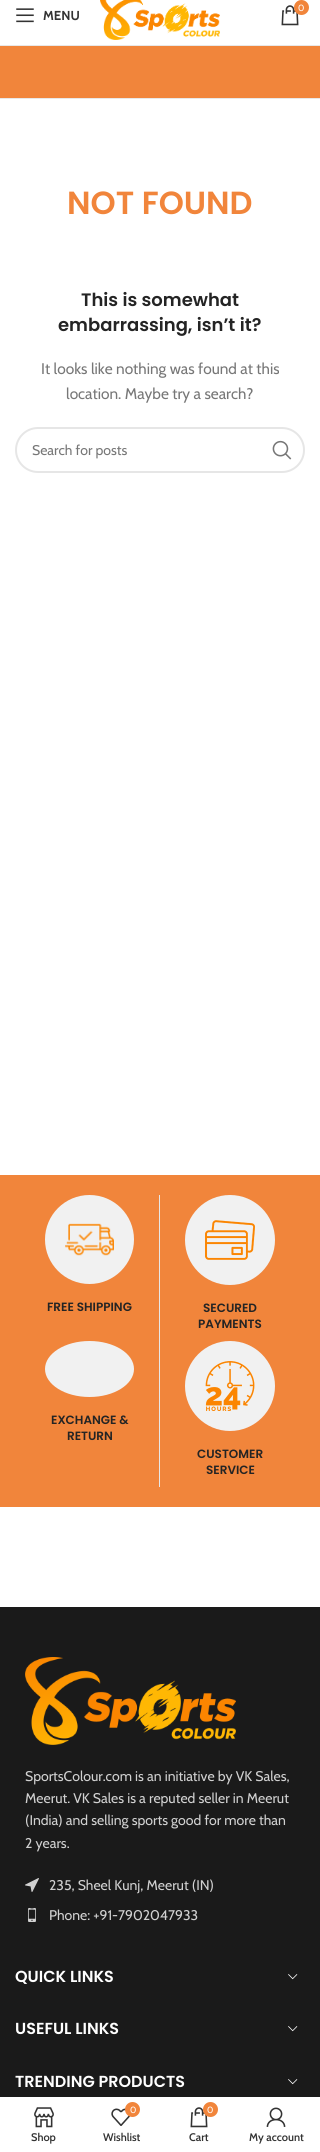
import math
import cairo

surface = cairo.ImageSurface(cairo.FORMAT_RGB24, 320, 2152)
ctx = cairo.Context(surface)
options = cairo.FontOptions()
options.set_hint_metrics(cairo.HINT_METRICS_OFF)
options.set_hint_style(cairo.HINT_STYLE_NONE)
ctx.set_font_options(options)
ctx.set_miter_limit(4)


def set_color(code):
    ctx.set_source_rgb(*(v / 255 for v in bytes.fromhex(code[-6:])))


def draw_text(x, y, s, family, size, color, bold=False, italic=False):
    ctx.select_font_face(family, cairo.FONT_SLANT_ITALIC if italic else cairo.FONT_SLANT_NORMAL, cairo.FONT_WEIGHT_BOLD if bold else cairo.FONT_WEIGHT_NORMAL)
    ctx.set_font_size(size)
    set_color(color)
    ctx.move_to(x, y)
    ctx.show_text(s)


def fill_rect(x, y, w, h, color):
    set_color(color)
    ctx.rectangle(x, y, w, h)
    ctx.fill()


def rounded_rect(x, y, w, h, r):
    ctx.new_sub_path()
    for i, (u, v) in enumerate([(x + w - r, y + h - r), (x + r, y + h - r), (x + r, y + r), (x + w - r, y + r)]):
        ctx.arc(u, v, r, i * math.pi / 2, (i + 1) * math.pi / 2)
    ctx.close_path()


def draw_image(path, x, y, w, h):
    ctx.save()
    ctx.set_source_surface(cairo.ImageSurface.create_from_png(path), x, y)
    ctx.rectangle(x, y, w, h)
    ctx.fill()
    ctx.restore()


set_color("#ffffff")
ctx.paint()
fill_rect(0, 45, 320, 1, "#e8e8e8")
draw_image("assets/img1.png", 100, 0, 120, 40)
draw_image("assets/img2.png", 281, 5, 18, 21)
set_color("#f1853b")
ctx.arc(301.5, 7.5, 7.5, 0, 2 * math.pi)
ctx.fill()
draw_text(298, 11, "0", "Cabin", 9, "#ffffff")
draw_image("assets/img3.png", 16, 8, 18, 15)
draw_text(43, 20, "MENU", "Cabin", 13, "#333333", bold=True)
fill_rect(0, 46, 320, 52, "#f1853b")
fill_rect(0, 98, 320, 1, "#e8e8e8")
draw_text(67, 214, "NOT FOUND", "Poppins SemiBold", 32, "#f1853b")
draw_text(81, 306, "This is somewhat", "Poppins SemiBold", 18, "#242424")
draw_text(58, 331, "embarrassing, isn’t it?", "Poppins SemiBold", 18, "#242424")
draw_text(41, 374, "It looks like nothing was found at this", "Cabin", 15.4, "#777777")
draw_text(66, 399, "location. Maybe try a search?", "Cabin", 15.4, "#777777")
rounded_rect(16, 428, 288, 44, 22)
set_color("#e6e6e6")
ctx.stroke()
draw_text(32, 455, "Search for posts", "Cabin", 14, "#777777")
draw_image("assets/img4.png", 272, 440, 20, 20)
fill_rect(0, 1175, 320, 332, "#f1853b")
fill_rect(159, 1195, 1, 292, "#e6e6e6")
set_color("#f1f1f1")
ctx.arc(89.5, 1239.5, 44.5, 0, 2 * math.pi)
ctx.fill()
draw_image("assets/img5.png", 65, 1223, 49, 33)
draw_text(47, 1311, "FREE SHIPPING", "Poppins SemiBold", 12, "#242424")
set_color("#f1f1f1")
ctx.new_path()
ctx.arc(230, 1240, 45, 0, 2 * math.pi)
ctx.fill()
draw_image("assets/img6.png", 205, 1220, 50, 40)
draw_text(203, 1312, "SECURED", "Poppins SemiBold", 12, "#242424")
draw_text(198, 1328, "PAYMENTS", "Poppins SemiBold", 12, "#242424")
set_color("#f1f1f1")
ctx.new_path()
ctx.move_to(89.5, 1341)
ctx.curve_to(114, 1341, 134, 1353.5, 134, 1369)
ctx.curve_to(134, 1384.5, 114, 1397, 89.5, 1397)
ctx.curve_to(65, 1397, 45, 1384.5, 45, 1369)
ctx.curve_to(45, 1353.5, 65, 1341, 89.5, 1341)
ctx.close_path()
ctx.fill()
draw_text(51, 1424, "EXCHANGE &", "Poppins SemiBold", 12, "#242424")
draw_text(67, 1440, "RETURN", "Poppins SemiBold", 12, "#242424")
set_color("#f1f1f1")
ctx.new_path()
ctx.arc(230, 1386, 45, 0, 2 * math.pi)
ctx.fill()
draw_image("assets/img7.png", 205, 1361, 50, 50)
draw_text(197, 1458, "CUSTOMER", "Poppins SemiBold", 12, "#242424")
draw_text(206, 1474, "SERVICE", "Poppins SemiBold", 12, "#242424")
fill_rect(0, 1607, 320, 490, "#1a1a1a")
draw_image("assets/img8.png", 25, 1657, 211, 88)
draw_text(25, 1781, "SportsColour.com is an initiative by VK Sales,", "Cabin", 14, "#d1d1d1")
draw_text(25, 1803, "Meerut. VK Sales is a reputed seller in Meerut", "Cabin", 14, "#d1d1d1")
draw_text(25, 1825, "(India) and selling sports good for more than", "Cabin", 14, "#d1d1d1")
draw_text(25, 1848, "2 years.", "Cabin", 14, "#d1d1d1")
draw_image("assets/img9.png", 25, 1878, 14, 14)
draw_text(49, 1890, "235, Sheel Kunj, Meerut (IN)", "Cabin", 14, "#d1d1d1")
draw_image("assets/img10.png", 28, 1908, 8, 14)
draw_text(49, 1920, "Phone: +91-7902047933", "Cabin", 14, "#d1d1d1")
draw_text(15, 1982, "QUICK LINKS", "Poppins SemiBold", 16, "#ffffff")
draw_image("assets/img11.png", 288, 1974, 10, 6)
draw_text(15, 2034, "USEFUL LINKS", "Poppins SemiBold", 16, "#ffffff")
draw_image("assets/img11.png", 288, 2026, 10, 6)
draw_text(15, 2087, "TRENDING PRODUCTS", "Poppins SemiBold", 16, "#ffffff")
draw_image("assets/img11.png", 288, 2079, 10, 6)
draw_image("assets/img12.png", 34, 2107, 20, 21)
draw_text(31, 2141, "Shop", "Cabin SemiBold", 11, "#333333")
draw_image("assets/img13.png", 111, 2108, 20, 18)
set_color("#f1853b")
ctx.arc(132.5, 2109.5, 7.5, 0, 2 * math.pi)
ctx.fill()
draw_text(130, 2113, "0", "Cabin", 9, "#ffffff")
draw_text(103, 2141, "Wishlist", "Cabin SemiBold", 11, "#333333")
draw_image("assets/img2.png", 190, 2107, 18, 21)
set_color("#f1853b")
ctx.arc(210.5, 2109.5, 7.5, 0, 2 * math.pi)
ctx.fill()
draw_text(207, 2113, "0", "Cabin", 9, "#ffffff")
draw_text(189, 2141, "Cart", "Cabin SemiBold", 11, "#333333")
draw_image("assets/img14.png", 266, 2107, 20, 20)
draw_text(249, 2141, "My account", "Cabin SemiBold", 11, "#333333")
surface.write_to_png("output.png")
